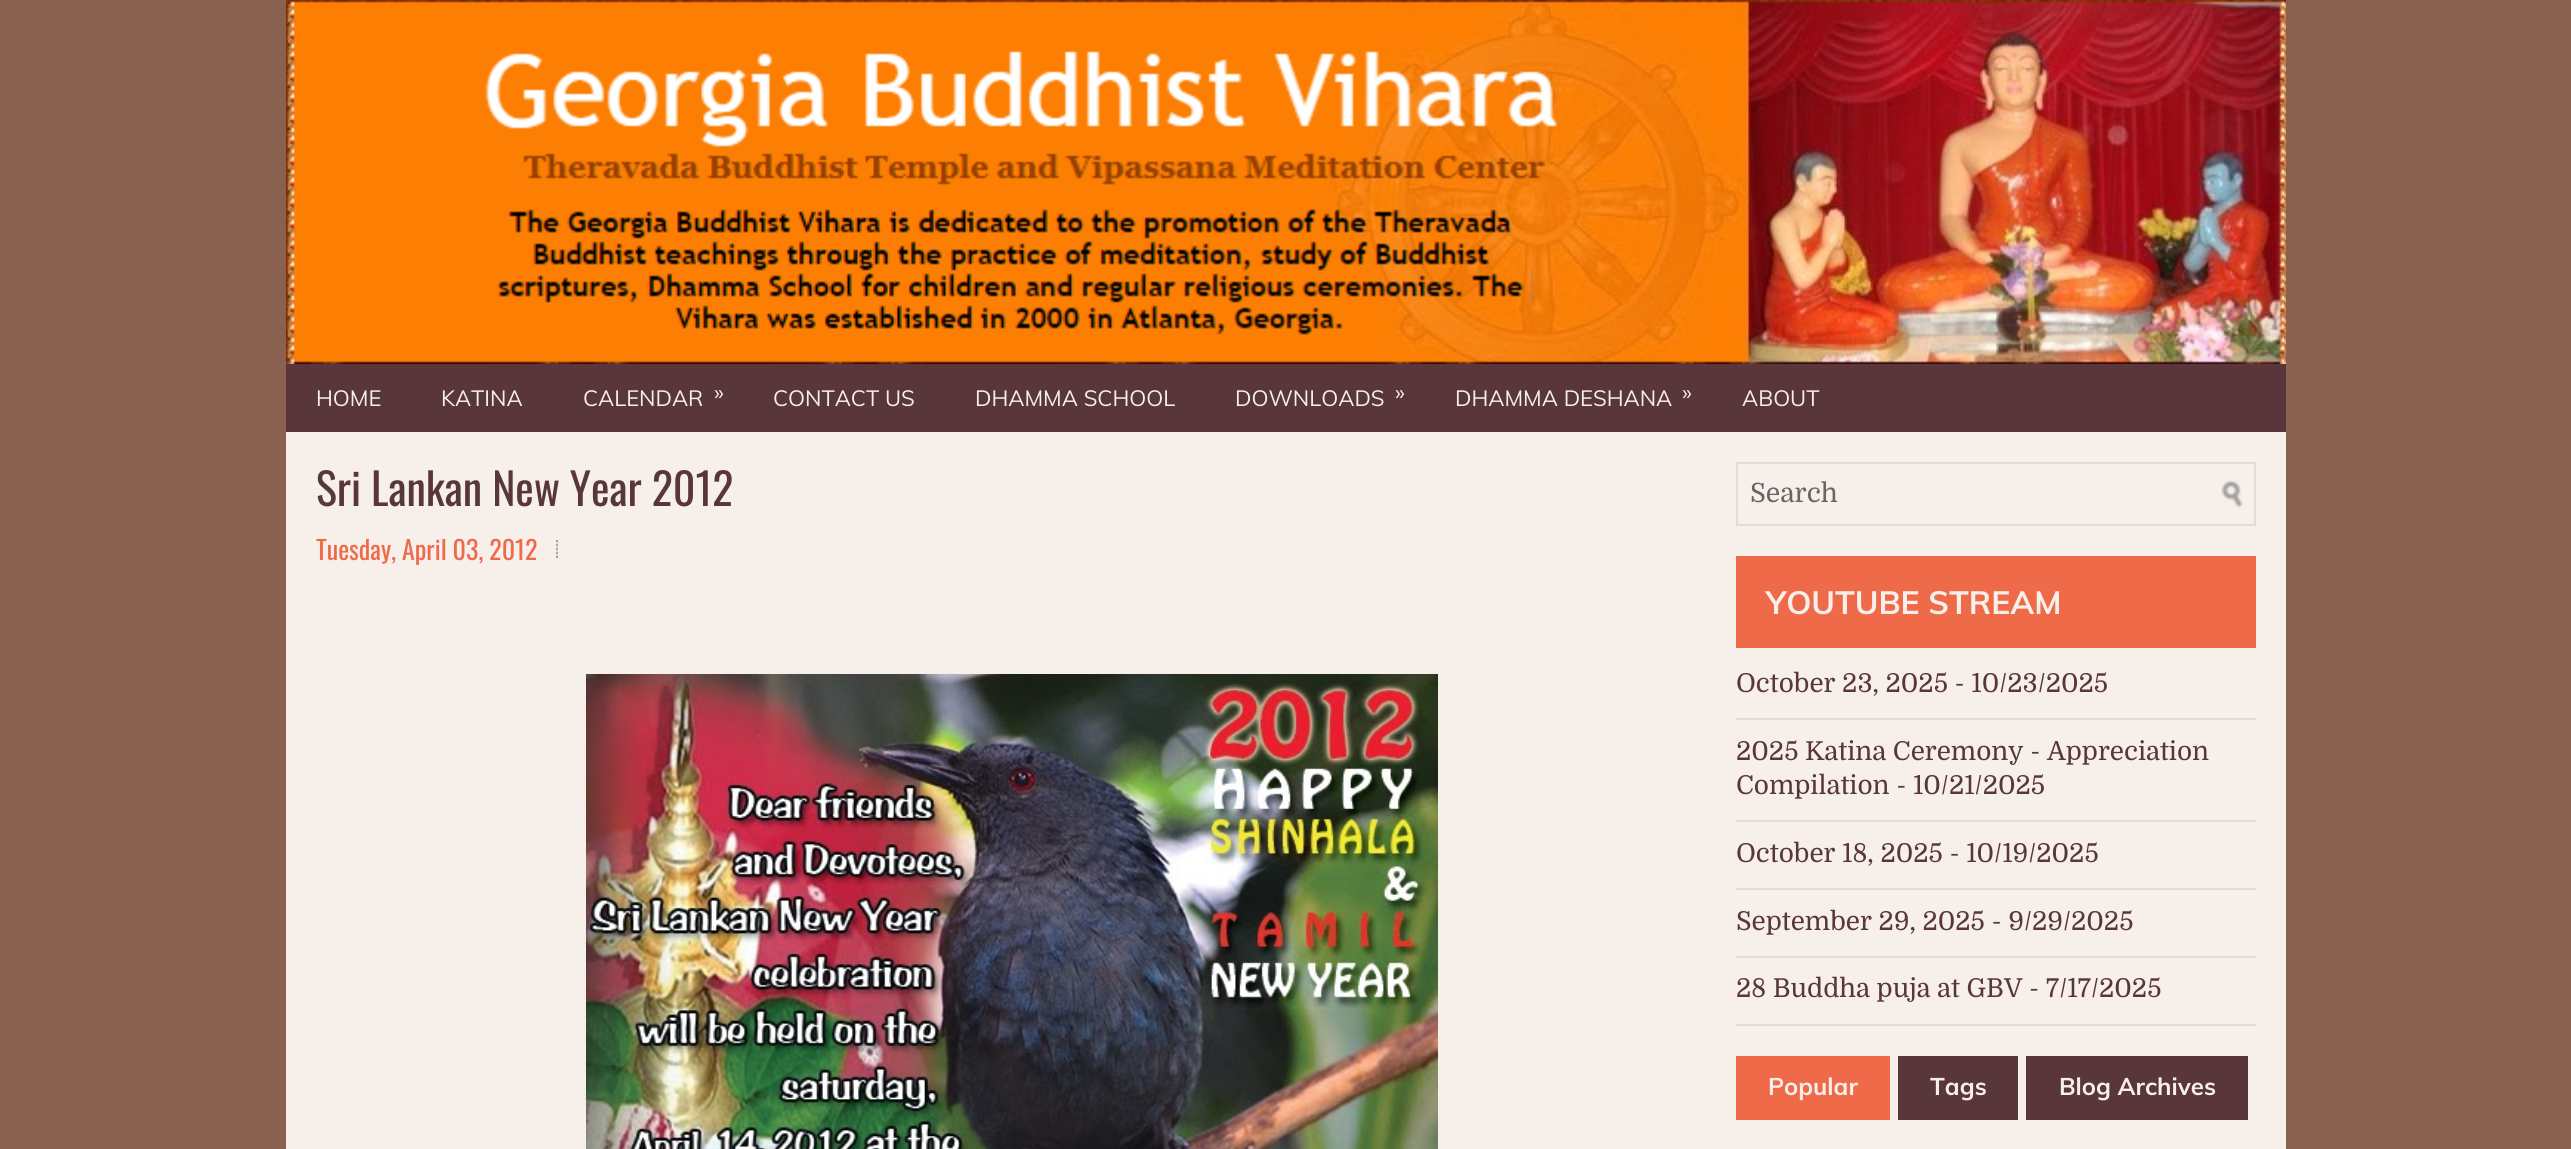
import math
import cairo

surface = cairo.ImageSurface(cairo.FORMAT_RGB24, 2571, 1149)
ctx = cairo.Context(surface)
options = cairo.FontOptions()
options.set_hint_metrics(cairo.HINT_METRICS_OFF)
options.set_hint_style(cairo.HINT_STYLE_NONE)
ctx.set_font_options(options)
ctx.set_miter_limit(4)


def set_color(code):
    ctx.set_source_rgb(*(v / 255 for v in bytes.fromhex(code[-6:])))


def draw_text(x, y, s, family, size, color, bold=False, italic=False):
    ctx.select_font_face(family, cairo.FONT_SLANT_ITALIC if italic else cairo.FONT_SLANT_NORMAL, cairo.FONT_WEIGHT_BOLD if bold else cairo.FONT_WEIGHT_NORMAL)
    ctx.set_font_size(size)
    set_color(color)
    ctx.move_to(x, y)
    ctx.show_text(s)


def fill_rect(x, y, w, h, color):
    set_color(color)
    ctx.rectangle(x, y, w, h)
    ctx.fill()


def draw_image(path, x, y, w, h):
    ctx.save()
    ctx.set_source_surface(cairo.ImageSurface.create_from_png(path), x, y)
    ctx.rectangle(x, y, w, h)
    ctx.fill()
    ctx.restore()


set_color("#8a6050")
ctx.paint()
draw_image("assets/img1.png", 286, 0, 2000, 364)
fill_rect(286, 364, 2000, 68, "#58363b")
draw_text(316, 406, "HOME", "Muli", 22, "#f6efea")
draw_text(441, 406, "KATINA", "Muli", 22, "#f6efea")
draw_text(583, 406, "CALENDAR", "Muli", 22, "#f6efea")
draw_text(714, 400, "»", "Muli", 22, "#f6efea")
draw_text(773, 406, "CONTACT US", "Muli", 22, "#f6efea")
draw_text(975, 406, "DHAMMA SCHOOL", "Muli", 22, "#f6efea")
draw_text(1235, 406, "DOWNLOADS", "Muli", 22, "#f6efea")
draw_text(1395, 400, "»", "Muli", 22, "#f6efea")
draw_text(1455, 406, "DHAMMA DESHANA", "Muli", 22, "#f6efea")
draw_text(1682, 400, "»", "Muli", 22, "#f6efea")
draw_text(1742, 406, "ABOUT", "Muli", 22, "#f6efea")
fill_rect(286, 432, 2000, 717, "#f6efea")
draw_text(316, 506, "Sri Lankan New Year 2012", "Oswald", 44, "#58363b")
draw_text(316, 560, "Tuesday, April 03, 2012", "Oswald", 26, "#ee6a49")
draw_image("assets/img2.png", 556, 540, 2, 18)
draw_image("assets/img3.png", 586, 674, 852, 475)
draw_image("assets/img4.png", 2221, 480, 22, 28)
ctx.rectangle(1737, 463, 518, 62)
set_color("#dddddd")
ctx.stroke()
draw_text(1750, 502, "Search", "Domine", 26.5, "#666666")
fill_rect(1736, 556, 520, 92, "#ee6a49")
draw_text(1766, 614, "YOUTUBE STREAM", "Muli", 32, "#f6efea", bold=True)
fill_rect(1736, 718, 520, 2, "#dddddd")
draw_text(1736, 692, "October 23, 2025 - 10/23/2025", "Domine", 26, "#58363b")
fill_rect(1736, 820, 520, 2, "#dddddd")
draw_text(1736, 760, "2025 Katina Ceremony - Appreciation", "Domine", 26, "#58363b")
draw_text(1736, 794, "Compilation - 10/21/2025", "Domine", 26, "#58363b")
fill_rect(1736, 888, 520, 2, "#dddddd")
draw_text(1736, 862, "October 18, 2025 - 10/19/2025", "Domine", 26, "#58363b")
fill_rect(1736, 956, 520, 2, "#dddddd")
draw_text(1736, 930, "September 29, 2025 - 9/29/2025", "Domine", 26, "#58363b")
fill_rect(1736, 1024, 520, 2, "#dddddd")
draw_text(1736, 997, "28 Buddha puja at GBV - 7/17/2025", "Domine", 26, "#58363b")
fill_rect(1736, 1056, 154, 64, "#ee6a49")
draw_text(1768, 1095, "Popular", "Muli", 24, "#f6efea", bold=True)
fill_rect(1898, 1056, 120, 64, "#58363b")
draw_text(1930, 1095, "Tags", "Muli", 24, "#f6efea", bold=True)
fill_rect(2026, 1056, 222, 64, "#58363b")
draw_text(2059, 1095, "Blog Archives", "Muli", 24, "#f6efea", bold=True)
surface.write_to_png("output.png")
